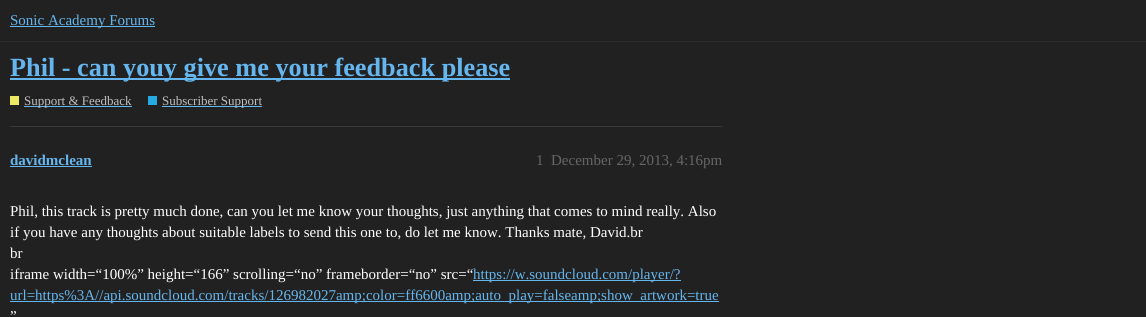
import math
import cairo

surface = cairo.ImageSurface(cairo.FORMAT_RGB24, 1146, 317)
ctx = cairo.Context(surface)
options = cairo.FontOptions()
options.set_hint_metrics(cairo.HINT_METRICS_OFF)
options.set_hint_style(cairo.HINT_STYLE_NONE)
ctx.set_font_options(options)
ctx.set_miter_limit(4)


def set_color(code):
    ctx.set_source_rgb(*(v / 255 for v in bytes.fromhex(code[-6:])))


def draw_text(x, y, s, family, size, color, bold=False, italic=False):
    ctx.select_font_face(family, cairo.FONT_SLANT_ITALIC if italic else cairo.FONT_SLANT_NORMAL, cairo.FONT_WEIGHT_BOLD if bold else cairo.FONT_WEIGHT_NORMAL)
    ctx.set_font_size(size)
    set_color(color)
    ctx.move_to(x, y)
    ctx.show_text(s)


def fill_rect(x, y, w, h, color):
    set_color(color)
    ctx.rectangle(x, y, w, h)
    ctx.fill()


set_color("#212121")
ctx.paint()
fill_rect(0, 41, 1146, 1, "#2c2c2c")
fill_rect(10, 26, 145, 1, "#65b6ee")
draw_text(10, 25, "Sonic Academy Forums", "Liberation Serif", 15, "#65b6ee")
fill_rect(10, 78, 500, 2, "#65b6ee")
draw_text(10, 76, "Phil - can youy give me your feedback please", "Liberation Serif", 26.25, "#65b6ee", bold=True)
fill_rect(10, 96, 9, 9, "#eee965")
fill_rect(24, 106, 108, 1, "#65b6ee")
draw_text(24, 105, "Support & Feedback", "Liberation Serif", 13, "#bfbfbf")
fill_rect(148, 96, 9, 9, "#25aae2")
fill_rect(162, 106, 100, 1, "#65b6ee")
draw_text(162, 105, "Subscriber Support", "Liberation Serif", 13, "#bfbfbf")
fill_rect(10, 126, 712, 1, "#383838")
draw_text(10, 165, "davidmclean", "Liberation Serif", 15, "#65b6ee", bold=True)
fill_rect(10, 166, 82, 1, "#65b6ee")
draw_text(536, 165, "1", "Liberation Serif", 15, "#666666")
draw_text(551, 165, "December 29, 2013, 4:16pm", "Liberation Serif", 15, "#666666")
draw_text(10, 216, "Phil, this track is pretty much done, can you let me know your thoughts, just anything that comes to mind really. Also", "Liberation Serif", 15, "#ffffff")
draw_text(10, 237, "if you have any thoughts about suitable labels to send this one to, do let me know. Thanks mate, David.br", "Liberation Serif", 15, "#ffffff")
draw_text(10, 258, "br", "Liberation Serif", 15, "#ffffff")
draw_text(10, 279, "iframe width=“100%” height=“166” scrolling=“no” frameborder=“no” src=“", "Liberation Serif", 15, "#ffffff")
fill_rect(473, 280, 208, 1, "#65b6ee")
draw_text(473, 279, "https://w.soundcloud.com/player/?", "Liberation Serif", 15, "#65b6ee")
fill_rect(10, 301, 709, 1, "#65b6ee")
draw_text(10, 300, "url=https%3A//api.soundcloud.com/tracks/126982027amp;color=ff6600amp;auto_play=falseamp;show_artwork=true", "Liberation Serif", 15, "#65b6ee")
draw_text(10, 321, "”", "Liberation Serif", 15, "#ffffff")
surface.write_to_png("output.png")
